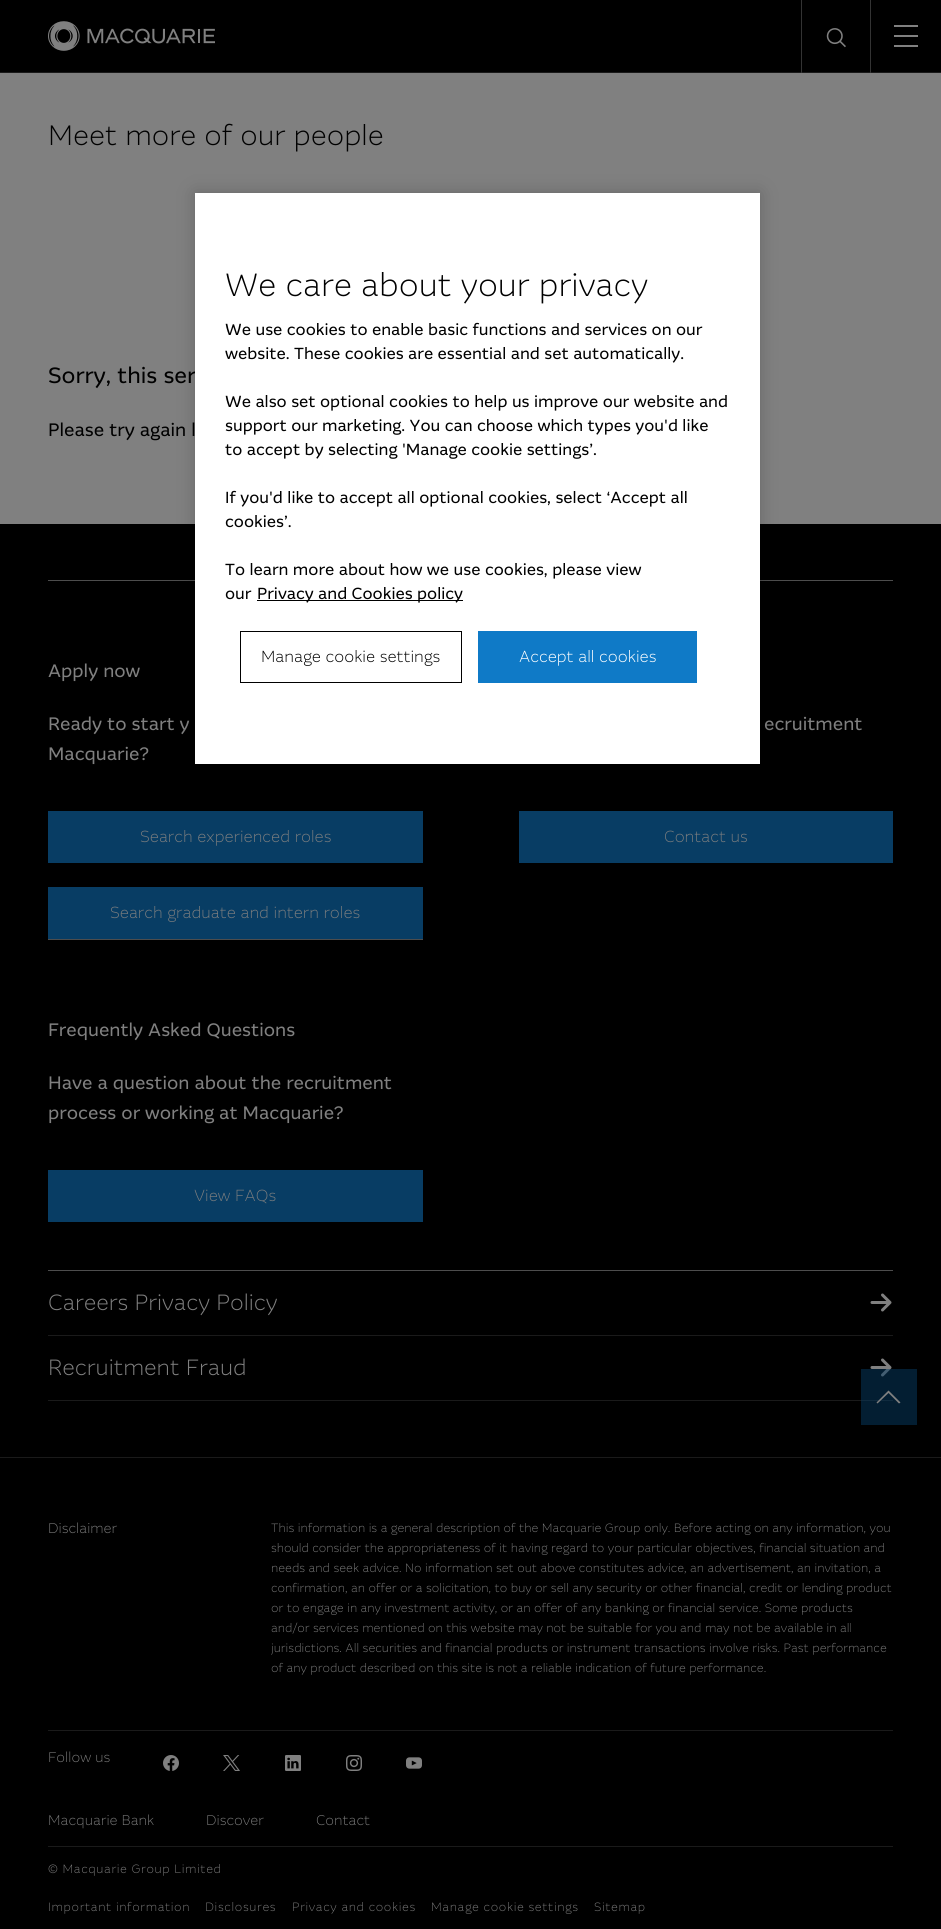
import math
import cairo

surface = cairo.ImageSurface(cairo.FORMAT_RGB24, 941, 1929)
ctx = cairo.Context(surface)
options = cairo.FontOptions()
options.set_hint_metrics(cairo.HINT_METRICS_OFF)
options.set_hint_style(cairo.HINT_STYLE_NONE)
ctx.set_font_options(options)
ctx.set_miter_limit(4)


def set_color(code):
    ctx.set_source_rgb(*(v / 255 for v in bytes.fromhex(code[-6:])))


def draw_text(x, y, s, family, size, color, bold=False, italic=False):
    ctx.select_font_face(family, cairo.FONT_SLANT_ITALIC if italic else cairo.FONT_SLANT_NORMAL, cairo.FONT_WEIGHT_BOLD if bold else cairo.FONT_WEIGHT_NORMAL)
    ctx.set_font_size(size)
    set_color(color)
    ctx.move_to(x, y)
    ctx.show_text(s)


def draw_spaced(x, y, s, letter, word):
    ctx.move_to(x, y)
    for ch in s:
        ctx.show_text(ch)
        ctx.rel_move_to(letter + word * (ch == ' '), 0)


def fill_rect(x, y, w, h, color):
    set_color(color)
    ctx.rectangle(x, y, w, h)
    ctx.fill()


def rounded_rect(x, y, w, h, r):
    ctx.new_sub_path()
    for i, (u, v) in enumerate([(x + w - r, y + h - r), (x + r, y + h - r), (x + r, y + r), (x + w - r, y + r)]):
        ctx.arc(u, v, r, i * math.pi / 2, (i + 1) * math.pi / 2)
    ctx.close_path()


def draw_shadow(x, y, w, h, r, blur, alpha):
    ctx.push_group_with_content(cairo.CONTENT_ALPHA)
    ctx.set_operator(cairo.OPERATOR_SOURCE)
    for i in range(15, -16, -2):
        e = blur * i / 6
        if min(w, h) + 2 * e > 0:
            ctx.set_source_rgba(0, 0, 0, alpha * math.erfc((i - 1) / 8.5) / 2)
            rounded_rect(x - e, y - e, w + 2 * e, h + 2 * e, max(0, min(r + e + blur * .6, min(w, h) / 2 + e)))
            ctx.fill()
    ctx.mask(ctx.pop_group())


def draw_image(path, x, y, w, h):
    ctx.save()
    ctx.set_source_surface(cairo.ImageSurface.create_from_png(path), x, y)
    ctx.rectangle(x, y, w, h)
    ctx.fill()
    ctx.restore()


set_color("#808080")
ctx.paint()
fill_rect(0, 72, 941, 1, "#1a1a1a")
fill_rect(0, 0, 941, 72, "#000000")
draw_image("assets/img1.png", 48, 21, 167, 30)
fill_rect(870, 0, 1, 73, "#333333")
fill_rect(801, 0, 1, 73, "#333333")
draw_image("assets/img2.png", 826, 28, 20, 20)
fill_rect(894, 25, 24, 2, "#808080")
fill_rect(894, 35, 24, 2, "#808080")
fill_rect(894, 45, 24, 2, "#808080")
draw_text(48, 145, "Meet more of our people", "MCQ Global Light", 28, "#000000")
draw_text(48, 383, "Sorry, this ser", "MCQ Global", 22, "#000000")
draw_text(48, 436, "Please try again l", "MCQ Global", 18, "#000000")
fill_rect(0, 524, 941, 933, "#000000")
fill_rect(48, 580, 147, 1, "#4d4d4d")
draw_text(48, 677, "Apply now", "MCQ Global", 18, "#808080")
draw_text(48, 730, "Ready to start y", "MCQ Global", 18, "#808080")
draw_text(48, 760, "Macquarie?", "MCQ Global", 18, "#808080")
fill_rect(48, 811, 375, 52, "#083d64")
draw_text(140, 842, "Search experienced roles", "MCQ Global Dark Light", 16, "#808080")
fill_rect(48, 887, 375, 52, "#083d64")
draw_text(110, 918, "Search graduate and intern roles", "MCQ Global Dark Light", 16, "#808080")
fill_rect(760, 580, 133, 1, "#4d4d4d")
draw_text(764, 730, "ecruitment", "MCQ Global", 18, "#808080")
fill_rect(519, 811, 374, 52, "#083d64")
draw_text(664, 842, "Contact us", "MCQ Global Dark Light", 16, "#808080")
fill_rect(48, 939, 375, 1, "#4d4d4d")
draw_text(48, 1036, "Frequently Asked Questions", "MCQ Global", 18, "#808080")
draw_text(48, 1089, "Have a question about the recruitment", "MCQ Global", 18, "#808080")
draw_text(48, 1119, "process or working at Macquarie?", "MCQ Global", 18, "#808080")
fill_rect(48, 1170, 375, 52, "#083d64")
draw_text(194, 1201, "View FAQs", "MCQ Global Dark Light", 16, "#808080")
fill_rect(48, 1270, 845, 1, "#4d4d4d")
fill_rect(48, 1335, 845, 1, "#1a1a1a")
draw_text(48, 1310, "Careers Privacy Policy", "MCQ Global Light", 22, "#808080")
draw_image("assets/img3.png", 870, 1293, 22, 19)
fill_rect(48, 1400, 845, 1, "#1a1a1a")
draw_text(48, 1375, "Recruitment Fraud", "MCQ Global Light", 22, "#808080")
draw_image("assets/img3.png", 870, 1358, 22, 19)
set_color("#000000")
draw_shadow(195, 193, 565, 571, 0, 9, 0.2)
fill_rect(195, 193, 565, 571, "#ffffff")
draw_text(225, 296, "We care about your privacy", "MCQ Global Light", 32, "#000000")
draw_text(225, 335, "We use cookies to enable basic functions and services on our", "MCQ Global", 16, "#000000")
draw_text(225, 359, "website. These cookies are essential and set automatically.", "MCQ Global", 16, "#000000")
draw_text(225, 407, "We also set optional cookies to help us improve our website and", "MCQ Global", 16, "#000000")
draw_text(225, 431, "support our marketing. You can choose which types you'd like", "MCQ Global", 16, "#000000")
draw_text(225, 455, "to accept by selecting 'Manage cookie settings’.", "MCQ Global", 16, "#000000")
draw_text(225, 503, "If you'd like to accept all optional cookies, select ‘Accept all", "MCQ Global", 16, "#000000")
draw_text(225, 527, "cookies’.", "MCQ Global", 16, "#000000")
draw_text(225, 575, "To learn more about how we use cookies, please view", "MCQ Global", 16, "#000000")
draw_text(225, 599, "our", "MCQ Global", 16, "#000000")
fill_rect(257, 600, 206, 1, "#000000")
draw_text(257, 599, "Privacy and Cookies policy", "MCQ Global", 16, "#000000")
ctx.rectangle(240.5, 631.5, 221, 51)
ctx.set_line_width(1)
ctx.stroke()
draw_text(261, 662, "Manage cookie settings", "MCQ Global Light", 16, "#000000")
fill_rect(478, 631, 219, 52, "#0f7ac7")
draw_text(519, 662, "Accept all cookies", "MCQ Global Light", 16, "#ffffff")
ctx.set_source_rgba(0.031, 0.239, 0.392, 0.5)
ctx.rectangle(861, 1369, 56, 56)
ctx.fill()
set_color("#808080")
ctx.new_path()
ctx.move_to(876.5, 1402.5)
ctx.line_to(877.5, 1403.5)
ctx.line_to(888.5, 1393)
ctx.line_to(899, 1403.5)
ctx.line_to(900.5, 1402.5)
ctx.line_to(888.5, 1390.5)
ctx.close_path()
ctx.fill()
fill_rect(0, 1458, 941, 471, "#000000")
fill_rect(0, 1457, 941, 1, "#1a1a1a")
draw_text(48, 1533, "Disclaimer", "MCQ Global Dark Light", 14, "#808080")
draw_text(271, 1532, "This information is a general description of the Macquarie Group only. Before acting on any information, you", "MCQ Global Dark Light", 12, "#808080")
draw_text(271, 1552, "should consider the appropriateness of it having regard to your particular objectives, financial situation and", "MCQ Global Dark Light", 12, "#808080")
draw_text(271, 1572, "needs and seek advice. No information set out above constitutes advice, an advertisement, an invitation, a", "MCQ Global Dark Light", 12, "#808080")
draw_text(271, 1592, "confirmation, an offer or a solicitation, to buy or sell any security or other financial, credit or lending product", "MCQ Global Dark Light", 12, "#808080")
draw_text(271, 1612, "or to engage in any investment activity, or an offer of any banking or financial service. Some products", "MCQ Global Dark Light", 12, "#808080")
draw_text(271, 1632, "and/or services mentioned on this website may not be suitable for you and may not be available in all", "MCQ Global Dark Light", 12, "#808080")
draw_text(271, 1652, "jurisdictions. All securities and financial products or instrument transactions involve risks. Past performance", "MCQ Global Dark Light", 12, "#808080")
draw_text(271, 1672, "of any product described on this site is not a reliable indication of future performance.", "MCQ Global Dark Light", 12, "#808080")
fill_rect(48, 1730, 845, 1, "#1a1a1a")
fill_rect(48, 1846, 845, 1, "#1a1a1a")
draw_text(48, 1762, "Follow us", "MCQ Global Dark Light", 14, "#808080")
draw_image("assets/img4.png", 163, 1755, 16, 16)
draw_image("assets/img5.png", 223, 1755, 17, 16)
draw_image("assets/img6.png", 285, 1755, 16, 16)
draw_image("assets/img7.png", 346, 1755, 16, 16)
draw_image("assets/img8.png", 406, 1757, 16, 12)
draw_text(48, 1825, "Macquarie Bank", "MCQ Global Dark Light", 14, "#808080")
draw_text(206, 1825, "Discover", "MCQ Global Dark Light", 14, "#808080")
draw_text(316, 1825, "Contact", "MCQ Global Dark Light", 14, "#808080")
ctx.set_font_size(12)
draw_spaced(48, 1873, "© Macquarie Group Limited", 0.6, 0)
draw_spaced(48, 1911, "Important information", 0.6, 0)
draw_spaced(205, 1911, "Disclosures", 0.6, 0)
draw_spaced(292, 1911, "Privacy and cookies", 0.6, 0)
draw_spaced(431, 1911, "Manage cookie settings", 0.6, 0)
draw_spaced(594, 1911, "Sitemap", 0.6, 0)
surface.write_to_png("output.png")
